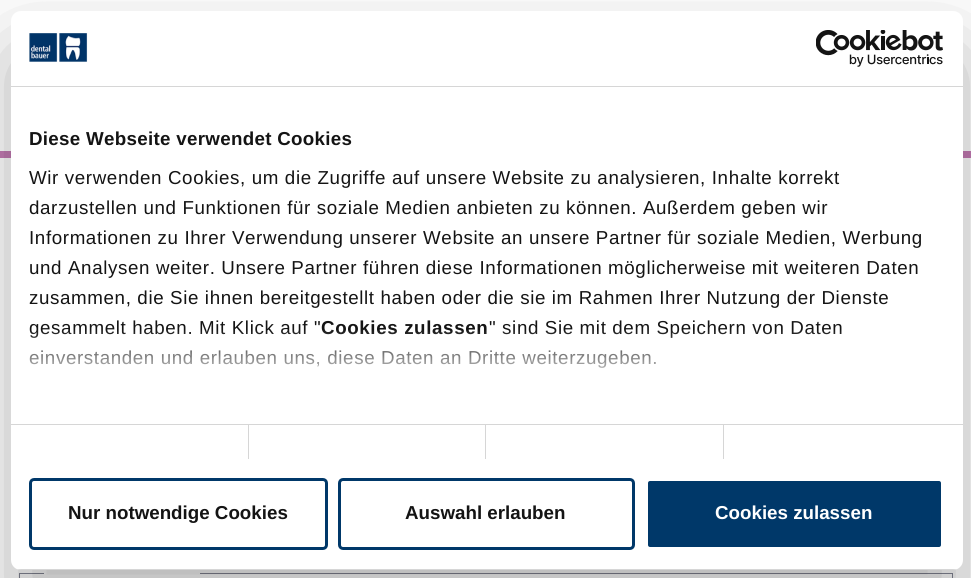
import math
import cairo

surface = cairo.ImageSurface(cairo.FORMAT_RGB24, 971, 578)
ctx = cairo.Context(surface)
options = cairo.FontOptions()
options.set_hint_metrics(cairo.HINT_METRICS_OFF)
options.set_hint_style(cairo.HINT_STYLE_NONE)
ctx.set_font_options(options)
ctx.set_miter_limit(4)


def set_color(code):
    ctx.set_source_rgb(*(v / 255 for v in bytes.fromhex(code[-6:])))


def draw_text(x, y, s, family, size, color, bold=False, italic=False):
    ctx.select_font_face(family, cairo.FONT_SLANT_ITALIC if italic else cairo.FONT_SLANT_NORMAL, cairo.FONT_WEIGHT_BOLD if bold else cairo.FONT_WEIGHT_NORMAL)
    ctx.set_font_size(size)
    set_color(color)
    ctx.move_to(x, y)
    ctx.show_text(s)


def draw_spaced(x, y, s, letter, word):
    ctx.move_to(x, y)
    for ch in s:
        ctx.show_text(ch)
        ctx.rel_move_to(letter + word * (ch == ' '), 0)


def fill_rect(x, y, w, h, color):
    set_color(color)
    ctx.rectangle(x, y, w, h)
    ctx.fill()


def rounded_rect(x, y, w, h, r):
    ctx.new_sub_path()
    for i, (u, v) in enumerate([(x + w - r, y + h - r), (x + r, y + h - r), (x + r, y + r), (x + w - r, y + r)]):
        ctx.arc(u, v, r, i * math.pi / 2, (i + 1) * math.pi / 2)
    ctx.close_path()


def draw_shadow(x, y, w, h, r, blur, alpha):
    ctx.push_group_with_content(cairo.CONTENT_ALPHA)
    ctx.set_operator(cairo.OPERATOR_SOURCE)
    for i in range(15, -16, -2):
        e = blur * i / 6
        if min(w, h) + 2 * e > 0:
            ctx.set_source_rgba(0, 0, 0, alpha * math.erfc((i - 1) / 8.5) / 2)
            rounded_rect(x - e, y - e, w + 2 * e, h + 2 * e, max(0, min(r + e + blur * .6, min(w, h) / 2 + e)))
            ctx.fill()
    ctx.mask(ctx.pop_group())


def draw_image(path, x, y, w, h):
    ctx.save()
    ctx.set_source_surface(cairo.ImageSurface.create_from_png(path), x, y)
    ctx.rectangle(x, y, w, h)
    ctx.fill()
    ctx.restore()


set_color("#ffffff")
ctx.paint()
fill_rect(0, 151, 971, 7, "#c37ab3")
ctx.rectangle(19.5, 573.5, 933, 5)
set_color("#858796")
ctx.set_line_width(1)
ctx.stroke()
fill_rect(44, 573, 156, 1, "#ffffff")
set_color("#000000")
draw_shadow(11, 51, 952, 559, 10, 42.5, 0.3)
set_color("#ffffff")
rounded_rect(11, 11, 952, 559, 10)
ctx.fill()
fill_rect(11, 86, 952, 1, "#d6d6d6")
draw_image("assets/img1.png", 29, 33, 59, 29)
draw_image("assets/img2.png", 816, 30, 127, 37)
fill_rect(11, 424, 952, 1, "#d6d6d6")
ctx.select_font_face("Liberation Sans", cairo.FONT_SLANT_NORMAL, cairo.FONT_WEIGHT_BOLD)
ctx.set_font_size(18.75)
set_color("#141414")
draw_spaced(29, 145, "Diese Webseite verwendet Cookies", 0.3, 0)
ctx.select_font_face("Liberation Sans")
draw_spaced(29, 184, "Wir verwenden Cookies, um die Zugriffe auf unsere Website zu analysieren, Inhalte korrekt", 0.62, 0)
draw_spaced(29, 214, "darzustellen und Funktionen für soziale Medien anbieten zu können. Außerdem geben wir", 0.62, 0)
draw_spaced(29, 244, "Informationen zu Ihrer Verwendung unserer Website an unsere Partner für soziale Medien, Werbung", 0.62, 0)
draw_spaced(29, 274, "und Analysen weiter. Unsere Partner führen diese Informationen möglicherweise mit weiteren Daten", 0.62, 0)
draw_spaced(29, 304, "zusammen, die Sie ihnen bereitgestellt haben oder die sie im Rahmen Ihrer Nutzung der Dienste", 0.62, 0)
draw_spaced(29, 334, "gesammelt haben. Mit Klick auf \"", 0.62, 0)
ctx.select_font_face("Liberation Sans", cairo.FONT_SLANT_NORMAL, cairo.FONT_WEIGHT_BOLD)
draw_spaced(321, 334, "Cookies zulassen", 0.62, 0)
ctx.select_font_face("Liberation Sans")
draw_spaced(489, 334, "\" sind Sie mit dem Speichern von Daten", 0.62, 0)
draw_spaced(29, 364, "einverstanden und erlauben uns, diese Daten an Dritte weiterzugeben.", 0.62, 0)
gradient = cairo.LinearGradient(478, 423, 478, 329)
gradient.add_color_stop_rgba(0, 1, 1, 1, 1)
gradient.add_color_stop_rgba(0.5, 1, 1, 1, 0.8)
gradient.add_color_stop_rgba(1, 1, 1, 1, 0)
ctx.set_source(gradient)
ctx.rectangle(29, 330, 813, 38)
ctx.fill()
fill_rect(248, 425, 1, 34, "#d6d6d6")
fill_rect(485, 425, 1, 34, "#d6d6d6")
fill_rect(723, 425, 1, 34, "#d6d6d6")
ctx.save()
rounded_rect(11, 11, 952, 559, 10)
ctx.clip()
fill_rect(11, 569, 952, 1, "#d6d6d6")
ctx.restore()
rounded_rect(30.5, 479.5, 296, 69, 3.5)
set_color("#003869")
ctx.set_line_width(3)
ctx.stroke()
draw_text(68, 519, "Nur notwendige Cookies", "Liberation Sans", 18.75, "#141414", bold=True)
rounded_rect(339.5, 479.5, 294, 69, 3.5)
set_color("#003869")
ctx.stroke()
draw_text(405, 519, "Auswahl erlauben", "Liberation Sans", 18.75, "#141414", bold=True)
set_color("#003869")
rounded_rect(646.5, 479.5, 296, 69, 3.5)
ctx.fill_preserve()
set_color("#ffffff")
ctx.stroke()
draw_text(715, 519, "Cookies zulassen", "Liberation Sans", 18.75, "#ffffff", bold=True)
surface.write_to_png("output.png")
